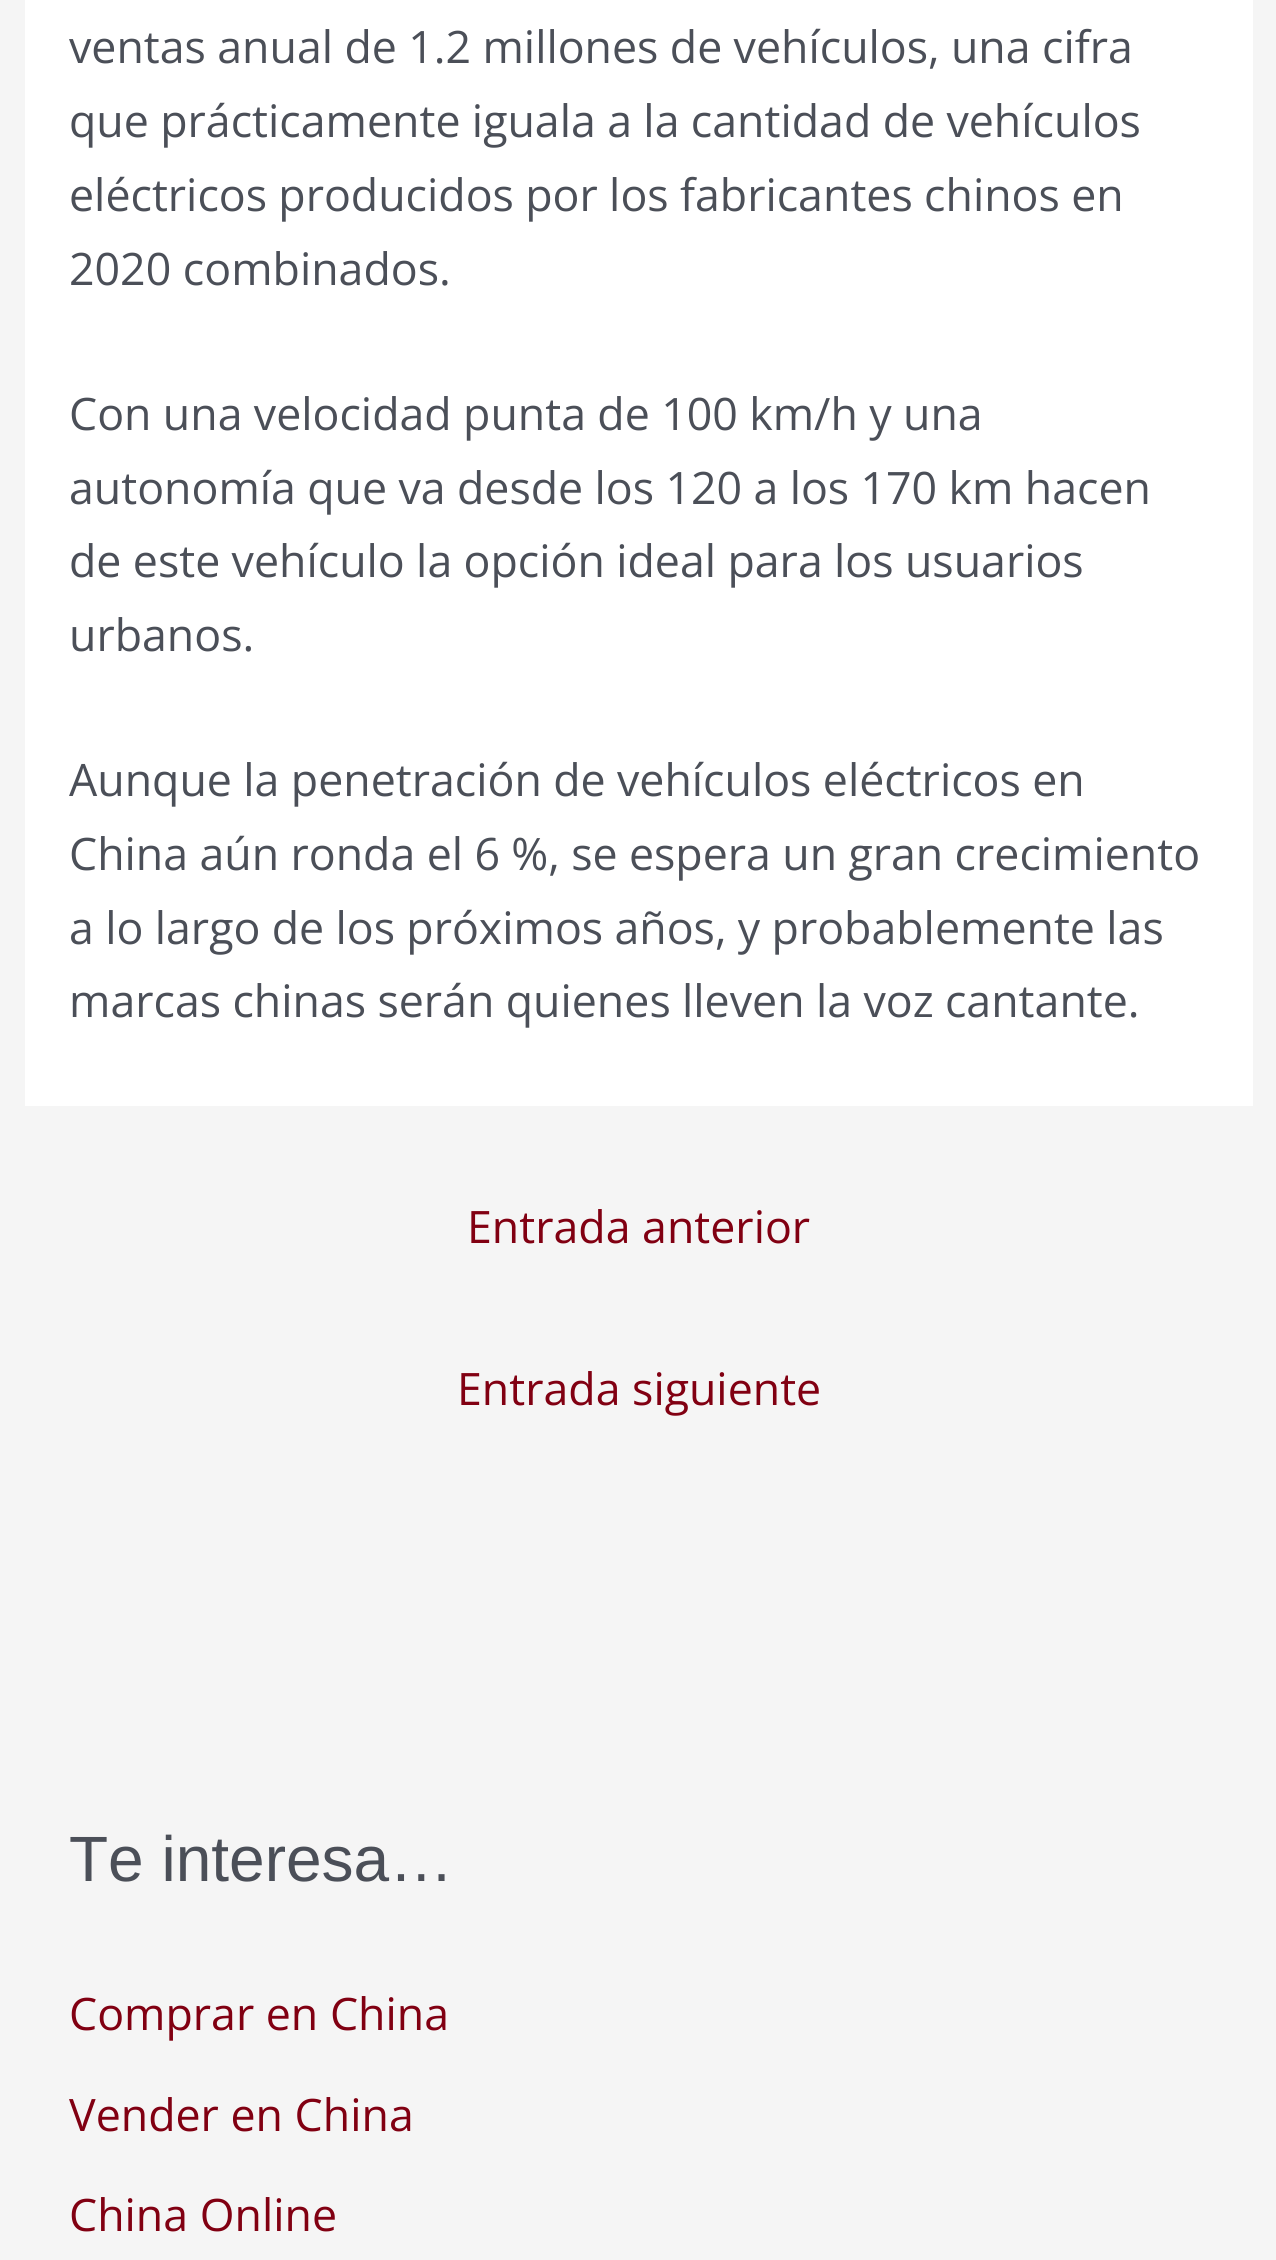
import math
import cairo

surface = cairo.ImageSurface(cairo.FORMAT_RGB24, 1276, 2260)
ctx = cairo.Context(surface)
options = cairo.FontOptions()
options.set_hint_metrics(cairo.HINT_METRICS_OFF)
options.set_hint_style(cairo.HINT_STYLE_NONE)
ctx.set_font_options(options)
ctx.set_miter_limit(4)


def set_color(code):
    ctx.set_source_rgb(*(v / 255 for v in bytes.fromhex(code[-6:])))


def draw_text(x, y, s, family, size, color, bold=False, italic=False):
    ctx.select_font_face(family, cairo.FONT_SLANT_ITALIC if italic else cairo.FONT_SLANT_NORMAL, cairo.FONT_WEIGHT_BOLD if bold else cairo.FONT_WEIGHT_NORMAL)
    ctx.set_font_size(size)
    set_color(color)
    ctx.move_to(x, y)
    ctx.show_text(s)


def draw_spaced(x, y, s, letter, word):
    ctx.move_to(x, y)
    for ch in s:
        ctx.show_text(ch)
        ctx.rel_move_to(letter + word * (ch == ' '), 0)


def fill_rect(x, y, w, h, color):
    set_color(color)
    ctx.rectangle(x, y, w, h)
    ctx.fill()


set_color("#f5f5f5")
ctx.paint()
fill_rect(25, 0, 1228, 1106, "#ffffff")
ctx.select_font_face("Open Sans")
ctx.set_font_size(44.7)
set_color("#4b4f58")
draw_spaced(69, 63, "ventas anual de 1.2 millones de vehículos, una cifra", 0, -0.25)
draw_spaced(69, 137, "que prácticamente iguala a la cantidad de vehículos", 0, -0.25)
draw_spaced(69, 211, "eléctricos producidos por los fabricantes chinos en", 0, -0.25)
draw_text(69, 285, "2020 combinados.", "Open Sans", 44.7, "#4b4f58")
draw_spaced(69, 430, "Con una velocidad punta de 100 km/h y una", 0, -0.25)
draw_spaced(69, 504, "autonomía que va desde los 120 a los 170 km hacen", 0, -0.25)
draw_spaced(69, 577, "de este vehículo la opción ideal para los usuarios", 0, -0.25)
draw_text(69, 651, "urbanos.", "Open Sans", 44.7, "#4b4f58")
draw_spaced(69, 796, "Aunque la penetración de vehículos eléctricos en", 0, -0.25)
draw_spaced(69, 870, "China aún ronda el 6 %, se espera un gran crecimiento", 0, -0.25)
draw_spaced(69, 944, "a lo largo de los próximos años, y probablemente las", 0, -0.25)
draw_spaced(69, 1017, "marcas chinas serán quienes lleven la voz cantante.", 0, -0.25)
draw_text(467, 1243, "Entrada anterior", "Open Sans", 44.7, "#810012")
draw_text(457, 1405, "Entrada siguiente", "Open Sans", 44.7, "#810012")
draw_text(69, 1881, "Te interesa…", "Liberation Sans", 64, "#4b4f58")
draw_text(69, 2030, "Comprar en China", "Open Sans", 44.7, "#810012")
draw_text(69, 2131, "Vender en China", "Open Sans", 44.7, "#810012")
draw_text(69, 2231, "China Online", "Open Sans", 44.7, "#810012")
surface.write_to_png("output.png")
